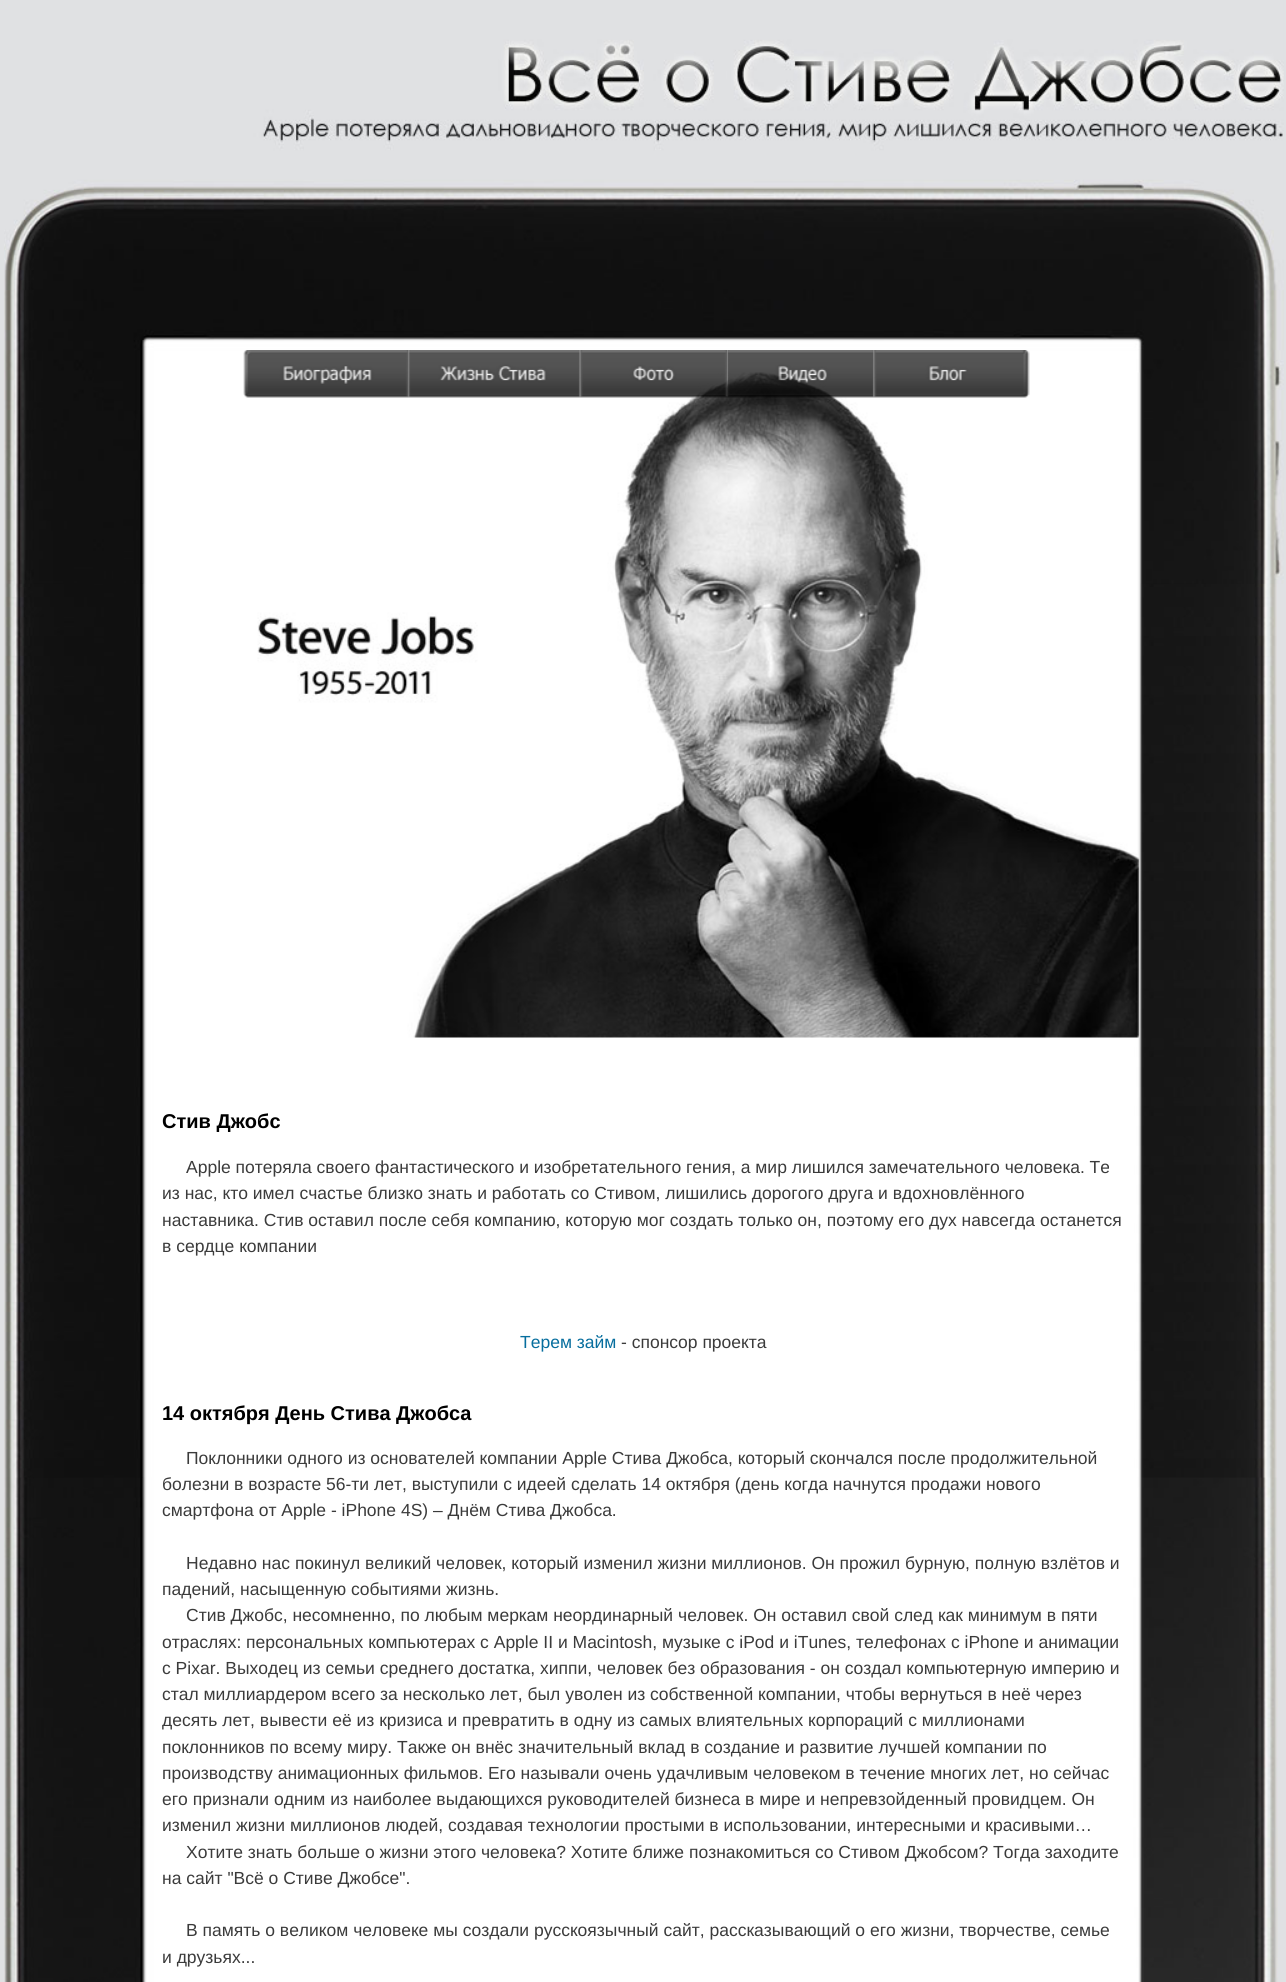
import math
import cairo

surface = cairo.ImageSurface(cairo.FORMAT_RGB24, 1286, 1982)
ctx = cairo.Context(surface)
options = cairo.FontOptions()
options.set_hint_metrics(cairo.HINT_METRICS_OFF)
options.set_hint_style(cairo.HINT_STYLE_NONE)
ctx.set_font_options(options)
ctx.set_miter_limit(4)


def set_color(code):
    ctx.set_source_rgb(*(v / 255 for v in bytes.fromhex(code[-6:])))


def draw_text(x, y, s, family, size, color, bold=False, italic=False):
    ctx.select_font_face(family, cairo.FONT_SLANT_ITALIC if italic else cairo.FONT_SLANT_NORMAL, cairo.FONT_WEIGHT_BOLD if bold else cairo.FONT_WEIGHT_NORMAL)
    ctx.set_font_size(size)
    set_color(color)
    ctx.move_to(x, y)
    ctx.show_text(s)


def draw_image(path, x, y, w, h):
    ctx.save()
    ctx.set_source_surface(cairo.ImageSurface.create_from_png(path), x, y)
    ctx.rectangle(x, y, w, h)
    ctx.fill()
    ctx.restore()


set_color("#e0e1e3")
ctx.paint()
draw_image("assets/img1.png", 4, 583, 1273, 895)
draw_image("assets/img2.png", 4, 0, 1280, 584)
draw_image("assets/img3.png", 4, 1477, 1274, 505)
draw_image("assets/img9.png", 257, 372, 883, 666)
draw_image("assets/img4.png", 243, 350, 167, 48)
draw_image("assets/img5.png", 408, 350, 173, 48)
draw_image("assets/img6.png", 579, 350, 149, 48)
draw_image("assets/img7.png", 727, 350, 148, 48)
draw_image("assets/img8.png", 873, 350, 157, 48)
draw_text(162, 1128, "Стив Джобс", "Liberation Sans", 20, "#000000", bold=True)
draw_text(186, 1173, "Apple потеряла своего фантастического и изобретательного гения, а мир лишился замечательного человека. Те", "Liberation Sans", 17.5, "#3b3b3b")
draw_text(162, 1199, "из нас, кто имел счастье близко знать и работать со Стивом, лишились дорогого друга и вдохновлённого", "Liberation Sans", 17.5, "#3b3b3b")
draw_text(162, 1226, "наставника. Стив оставил после себя компанию, которую мог создать только он, поэтому его дух навсегда останется", "Liberation Sans", 17.5, "#3b3b3b")
draw_text(162, 1252, "в сердце компании", "Liberation Sans", 17.5, "#3b3b3b")
draw_text(520, 1348, "Терем займ", "Liberation Sans", 17.5, "#076e9e")
draw_text(621, 1348, "- спонсор проекта", "Liberation Sans", 17.5, "#3b3b3b")
draw_text(162, 1420, "14 октября День Стива Джобса", "Liberation Sans", 20, "#000000", bold=True)
draw_text(186, 1464, "Поклонники одного из основателей компании Apple Стива Джобса, который скончался после продолжительной", "Liberation Sans", 17.5, "#3b3b3b")
draw_text(162, 1490, "болезни в возрасте 56-ти лет, выступили с идеей сделать 14 октября (день когда начнутся продажи нового", "Liberation Sans", 17.5, "#3b3b3b")
draw_text(162, 1516, "смартфона от Apple - iPhone 4S) – Днём Стива Джобса.", "Liberation Sans", 17.5, "#3b3b3b")
draw_text(186, 1569, "Недавно нас покинул великий человек, который изменил жизни миллионов. Он прожил бурную, полную взлётов и", "Liberation Sans", 17.5, "#3b3b3b")
draw_text(162, 1595, "падений, насыщенную событиями жизнь.", "Liberation Sans", 17.5, "#3b3b3b")
draw_text(186, 1621, "Стив Джобс, несомненно, по любым меркам неординарный человек. Он оставил свой след как минимум в пяти", "Liberation Sans", 17.5, "#3b3b3b")
draw_text(162, 1648, "отраслях: персональных компьютерах с Apple II и Macintosh, музыке с iPod и iTunes, телефонах с iPhone и анимации", "Liberation Sans", 17.5, "#3b3b3b")
draw_text(162, 1674, "с Pixar. Выходец из семьи среднего достатка, хиппи, человек без образования - он создал компьютерную империю и", "Liberation Sans", 17.5, "#3b3b3b")
draw_text(162, 1700, "стал миллиардером всего за несколько лет, был уволен из собственной компании, чтобы вернуться в неё через", "Liberation Sans", 17.5, "#3b3b3b")
draw_text(162, 1726, "десять лет, вывести её из кризиса и превратить в одну из самых влиятельных корпораций с миллионами", "Liberation Sans", 17.5, "#3b3b3b")
draw_text(162, 1753, "поклонников по всему миру. Также он внёс значительный вклад в создание и развитие лучшей компании по", "Liberation Sans", 17.5, "#3b3b3b")
draw_text(162, 1779, "производству анимационных фильмов. Его называли очень удачливым человеком в течение многих лет, но сейчас", "Liberation Sans", 17.5, "#3b3b3b")
draw_text(162, 1805, "его признали одним из наиболее выдающихся руководителей бизнеса в мире и непревзойденный провидцем. Он", "Liberation Sans", 17.5, "#3b3b3b")
draw_text(162, 1831, "изменил жизни миллионов людей, создавая технологии простыми в использовании, интересными и красивыми…", "Liberation Sans", 17.5, "#3b3b3b")
draw_text(186, 1858, "Хотите знать больше о жизни этого человека? Хотите ближе познакомиться со Стивом Джобсом? Тогда заходите", "Liberation Sans", 17.5, "#3b3b3b")
draw_text(162, 1884, "на сайт \"Всё о Стиве Джобсе\".", "Liberation Sans", 17.5, "#3b3b3b")
draw_text(186, 1936, "В память о великом человеке мы создали русскоязычный сайт, рассказывающий о его жизни, творчестве, семье", "Liberation Sans", 17.5, "#3b3b3b")
draw_text(162, 1963, "и друзьях...", "Liberation Sans", 17.5, "#3b3b3b")
surface.write_to_png("output.png")
